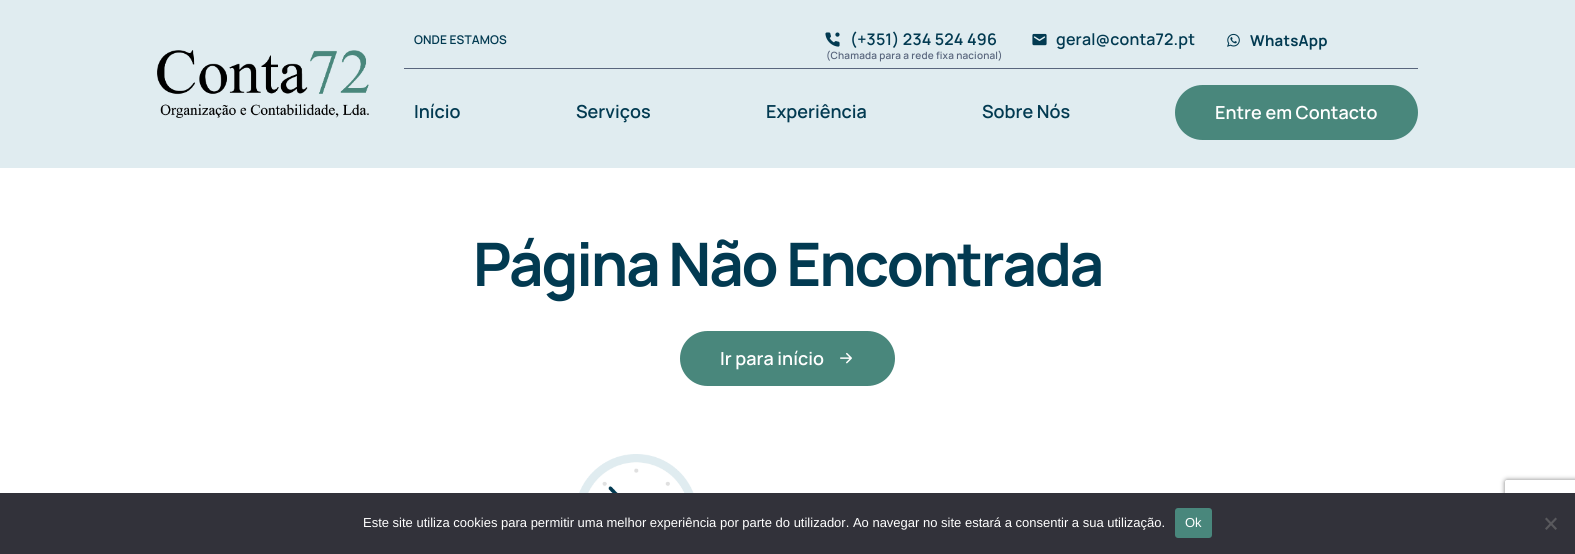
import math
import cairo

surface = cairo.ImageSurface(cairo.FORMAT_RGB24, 1575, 554)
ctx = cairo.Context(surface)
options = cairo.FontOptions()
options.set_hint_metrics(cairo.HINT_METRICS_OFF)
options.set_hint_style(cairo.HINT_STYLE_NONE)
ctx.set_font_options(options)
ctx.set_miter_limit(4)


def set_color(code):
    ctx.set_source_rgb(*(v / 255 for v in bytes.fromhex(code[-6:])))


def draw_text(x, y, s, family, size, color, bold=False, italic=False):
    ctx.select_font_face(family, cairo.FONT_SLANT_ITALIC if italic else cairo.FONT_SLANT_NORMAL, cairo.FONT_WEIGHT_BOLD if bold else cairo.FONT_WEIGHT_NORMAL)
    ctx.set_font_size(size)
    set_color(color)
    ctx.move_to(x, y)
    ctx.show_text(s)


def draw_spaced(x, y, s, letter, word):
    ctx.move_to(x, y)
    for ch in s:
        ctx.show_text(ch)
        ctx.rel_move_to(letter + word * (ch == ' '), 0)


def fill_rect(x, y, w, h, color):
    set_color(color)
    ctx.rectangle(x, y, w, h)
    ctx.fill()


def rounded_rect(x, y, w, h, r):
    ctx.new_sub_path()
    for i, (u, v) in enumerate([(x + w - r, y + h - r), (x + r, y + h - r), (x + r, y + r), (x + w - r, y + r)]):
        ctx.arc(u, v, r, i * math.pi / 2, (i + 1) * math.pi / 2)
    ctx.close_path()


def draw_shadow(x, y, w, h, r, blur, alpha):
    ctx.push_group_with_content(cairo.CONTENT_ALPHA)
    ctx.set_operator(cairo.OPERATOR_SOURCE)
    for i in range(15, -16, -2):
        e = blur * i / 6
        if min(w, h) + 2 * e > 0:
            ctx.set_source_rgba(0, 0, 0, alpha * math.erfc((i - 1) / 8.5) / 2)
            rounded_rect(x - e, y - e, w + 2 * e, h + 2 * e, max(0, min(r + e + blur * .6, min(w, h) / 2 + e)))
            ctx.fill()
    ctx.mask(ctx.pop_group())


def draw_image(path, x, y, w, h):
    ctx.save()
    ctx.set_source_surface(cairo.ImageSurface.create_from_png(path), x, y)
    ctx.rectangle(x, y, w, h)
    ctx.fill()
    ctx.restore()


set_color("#ffffff")
ctx.paint()
fill_rect(0, 0, 1575, 168, "#e0ecf0")
draw_image("assets/img1.png", 157, 50, 212, 68)
fill_rect(404, 68, 1014, 1, "#59667d")
ctx.select_font_face("Manrope SemiBold")
ctx.set_font_size(12)
set_color("#023a51")
draw_spaced(414, 44, "ONDE ESTAMOS", 0.1, 0)
draw_image("assets/img2.png", 825, 32, 15, 15)
ctx.set_font_size(16)
draw_spaced(850, 45, "(+351) 234 524 496", 0.15, 0)
ctx.set_font_size(10)
set_color("#59667d")
draw_spaced(826, 59, "(Chamada para a rede fixa nacional)", 0.15, 0)
draw_image("assets/img3.png", 1032, 33, 15, 13)
ctx.set_font_size(16)
set_color("#023a51")
draw_spaced(1056, 45, "geral@conta72.pt", 0.15, 0)
draw_image("assets/img4.png", 1227, 33, 13, 14)
ctx.select_font_face("Manrope", cairo.FONT_SLANT_NORMAL, cairo.FONT_WEIGHT_BOLD)
ctx.set_font_size(15)
draw_spaced(1250, 46, "WhatsApp", 0.25, 0)
draw_text(414, 118, "Início", "Manrope SemiBold", 18, "#023a51")
draw_text(576, 118, "Serviços", "Manrope SemiBold", 18, "#023a51")
draw_text(766, 118, "Experiência", "Manrope SemiBold", 18, "#023a51")
draw_text(982, 118, "Sobre Nós", "Manrope SemiBold", 18, "#023a51")
set_color("#49877c")
rounded_rect(1175, 85, 243, 55, 27.5)
ctx.fill()
draw_text(1215, 119, "Entre em Contacto", "Manrope SemiBold", 18, "#ffffff")
ctx.select_font_face("Manrope", cairo.FONT_SLANT_NORMAL, cairo.FONT_WEIGHT_BOLD)
ctx.set_font_size(60)
set_color("#023a51")
draw_spaced(473, 286, "Página Não Encontrada", -2.2, 0)
set_color("#49877c")
rounded_rect(680, 331, 215, 55, 27.5)
ctx.fill()
draw_text(720, 365, "Ir para início", "Manrope SemiBold", 18, "#ffffff")
draw_image("assets/img5.png", 840, 352, 12, 12)
draw_image("assets/img6.png", 579, 454, 115, 39)
ctx.save()
ctx.set_fill_rule(cairo.FILL_RULE_EVEN_ODD)
ctx.new_path()
ctx.move_to(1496, 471)
ctx.line_to(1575, 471)
ctx.line_to(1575, 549)
ctx.line_to(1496, 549)
ctx.close_path()
ctx.move_to(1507, 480)
ctx.line_to(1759, 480)
ctx.curve_to(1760, 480, 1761, 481, 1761, 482)
ctx.line_to(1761, 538)
ctx.curve_to(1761, 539, 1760, 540, 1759, 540)
ctx.line_to(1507, 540)
ctx.curve_to(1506, 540, 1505, 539, 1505, 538)
ctx.line_to(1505, 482)
ctx.curve_to(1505, 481, 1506, 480, 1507, 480)
ctx.close_path()
ctx.clip()
set_color("#808080")
draw_shadow(1505, 480, 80, 60, 2, 2.5, 1)
ctx.restore()
fill_rect(0, 493, 1575, 61, "#32323a")
draw_text(363, 527, "Este site utiliza cookies para permitir uma melhor experiência por parte do utilizador. Ao navegar no site estará a consentir a sua utilização.", "Liberation Sans", 13, "#ffffff")
set_color("#49877c")
rounded_rect(1175, 508, 37, 30, 3)
ctx.fill()
draw_text(1185, 527, "Ok", "Liberation Sans", 13, "#ffffff")
set_color("#59595d")
ctx.new_path()
ctx.move_to(1555.5, 517.5)
ctx.line_to(1557, 519)
ctx.line_to(1546.5, 530)
ctx.line_to(1545, 528.5)
ctx.close_path()
ctx.fill()
ctx.new_path()
ctx.move_to(1545, 519)
ctx.line_to(1546.5, 517.5)
ctx.line_to(1557, 528.5)
ctx.line_to(1555.5, 530)
ctx.close_path()
ctx.fill()
surface.write_to_png("output.png")
